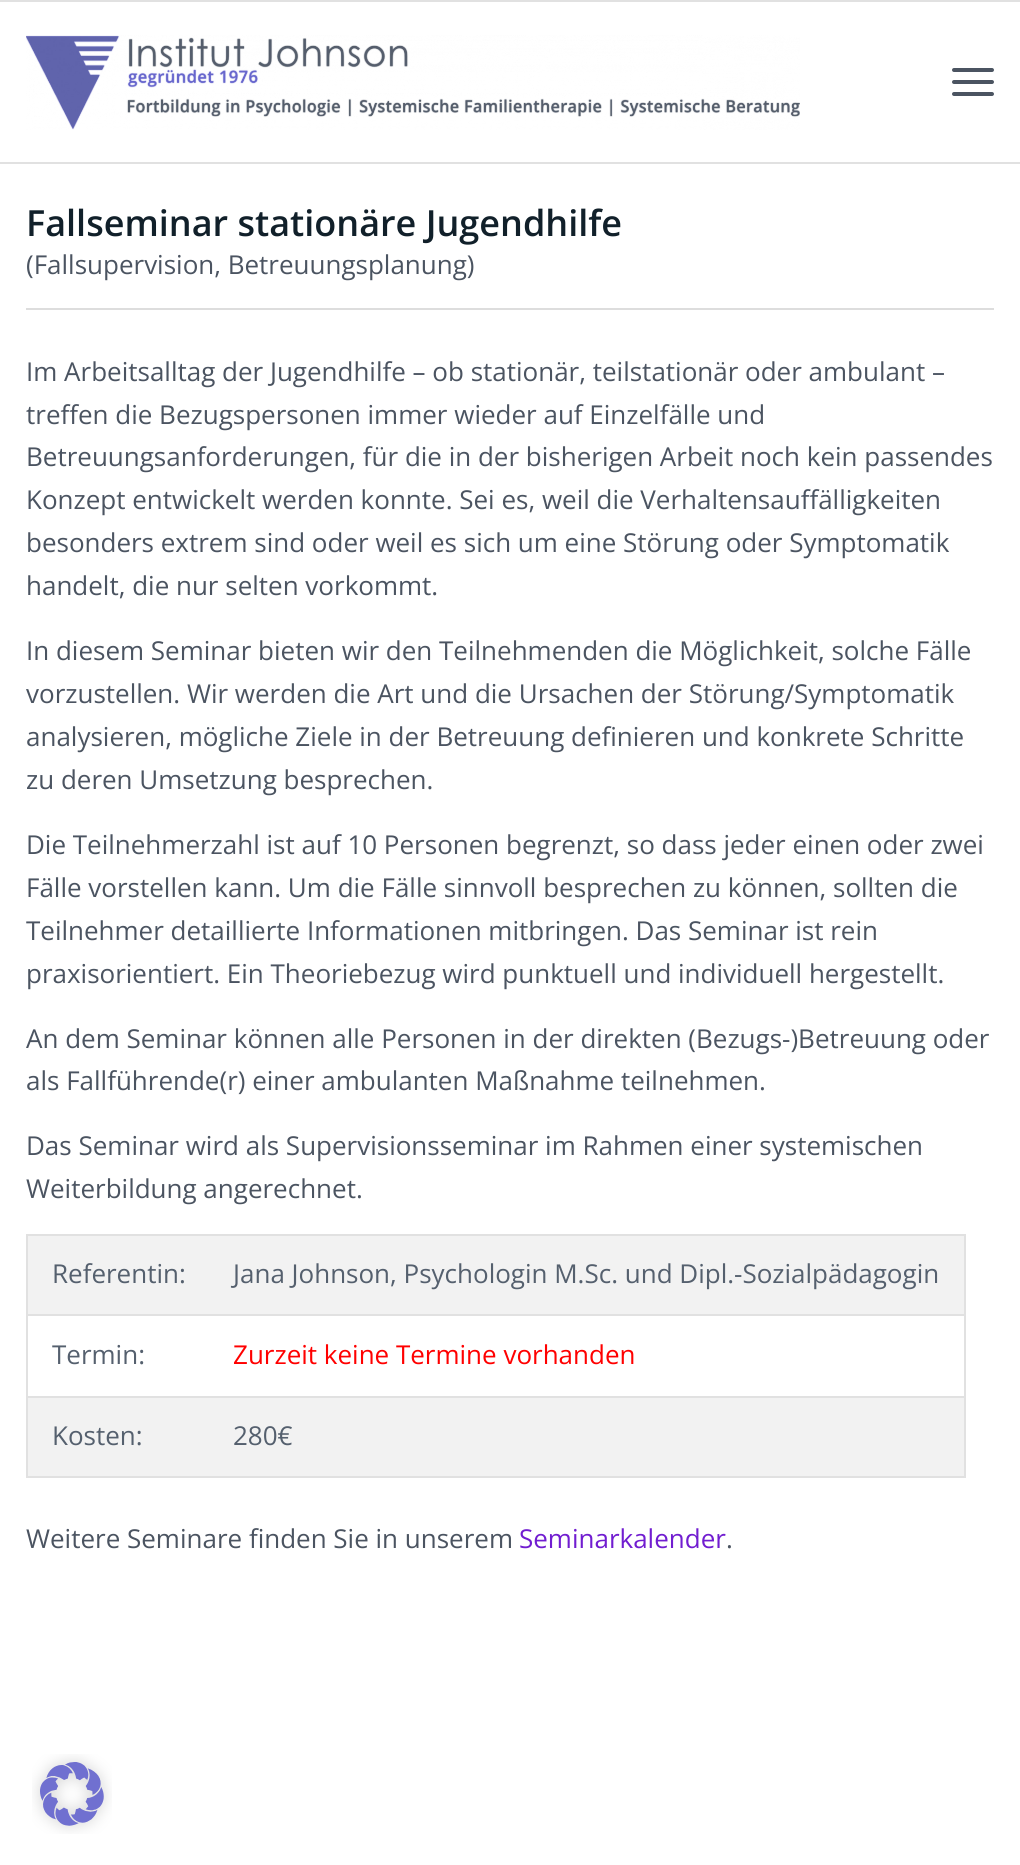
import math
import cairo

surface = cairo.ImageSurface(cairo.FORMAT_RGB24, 1020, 1865)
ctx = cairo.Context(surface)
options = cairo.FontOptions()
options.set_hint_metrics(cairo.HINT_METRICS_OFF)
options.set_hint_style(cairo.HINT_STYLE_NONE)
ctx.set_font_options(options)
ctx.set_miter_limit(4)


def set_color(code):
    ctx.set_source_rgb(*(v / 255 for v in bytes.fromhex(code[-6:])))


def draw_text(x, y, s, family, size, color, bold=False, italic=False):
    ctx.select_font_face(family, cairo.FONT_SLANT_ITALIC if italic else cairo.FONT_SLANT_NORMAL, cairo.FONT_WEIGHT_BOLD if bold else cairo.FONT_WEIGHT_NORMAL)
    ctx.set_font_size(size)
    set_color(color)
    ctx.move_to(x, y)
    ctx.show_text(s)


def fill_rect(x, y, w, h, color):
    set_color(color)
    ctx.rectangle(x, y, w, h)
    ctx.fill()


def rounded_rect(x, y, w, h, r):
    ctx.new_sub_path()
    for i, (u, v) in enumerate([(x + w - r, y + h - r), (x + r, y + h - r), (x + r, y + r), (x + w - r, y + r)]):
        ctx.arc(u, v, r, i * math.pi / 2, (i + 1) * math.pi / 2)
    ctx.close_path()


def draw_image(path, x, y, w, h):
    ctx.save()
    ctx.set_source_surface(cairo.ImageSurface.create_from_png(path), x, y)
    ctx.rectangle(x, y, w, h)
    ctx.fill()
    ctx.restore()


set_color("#ffffff")
ctx.paint()
fill_rect(0, 0, 1020, 2, "#e1e1e1")
fill_rect(0, 162, 1020, 2, "#e1e1e1")
draw_image("assets/img1.png", 26, 35, 774, 95)
set_color("#4b5461")
rounded_rect(952, 80, 42, 4, 2)
ctx.fill()
rounded_rect(952, 68, 42, 4, 2)
ctx.fill()
rounded_rect(952, 92, 42, 4, 2)
ctx.fill()
draw_text(26, 236, "Fallseminar stationäre Jugendhilfe", "Open Sans SemiBold", 36, "#11202a")
draw_text(26, 274, "(Fallsupervision, Betreuungsplanung)", "Open Sans", 26, "#4b5461")
fill_rect(26, 308, 968, 2, "#dddddd")
draw_text(26, 381, "Im Arbeitsalltag der Jugendhilfe – ob stationär, teilstationär oder ambulant –", "Open Sans", 26, "#4b5461")
draw_text(26, 424, "treffen die Bezugspersonen immer wieder auf Einzelfälle und", "Open Sans", 26, "#4b5461")
draw_text(26, 466, "Betreuungsanforderungen, für die in der bisherigen Arbeit noch kein passendes", "Open Sans", 26, "#4b5461")
draw_text(26, 509, "Konzept entwickelt werden konnte. Sei es, weil die Verhaltensauffälligkeiten", "Open Sans", 26, "#4b5461")
draw_text(26, 552, "besonders extrem sind oder weil es sich um eine Störung oder Symptomatik", "Open Sans", 26, "#4b5461")
draw_text(26, 595, "handelt, die nur selten vorkommt.", "Open Sans", 26, "#4b5461")
draw_text(26, 660, "In diesem Seminar bieten wir den Teilnehmenden die Möglichkeit, solche Fälle", "Open Sans", 26, "#4b5461")
draw_text(26, 703, "vorzustellen. Wir werden die Art und die Ursachen der Störung/Symptomatik", "Open Sans", 26, "#4b5461")
draw_text(26, 746, "analysieren, mögliche Ziele in der Betreuung definieren und konkrete Schritte", "Open Sans", 26, "#4b5461")
draw_text(26, 789, "zu deren Umsetzung besprechen.", "Open Sans", 26, "#4b5461")
draw_text(26, 854, "Die Teilnehmerzahl ist auf 10 Personen begrenzt, so dass jeder einen oder zwei", "Open Sans", 26, "#4b5461")
draw_text(26, 897, "Fälle vorstellen kann. Um die Fälle sinnvoll besprechen zu können, sollten die", "Open Sans", 26, "#4b5461")
draw_text(26, 940, "Teilnehmer detaillierte Informationen mitbringen. Das Seminar ist rein", "Open Sans", 26, "#4b5461")
draw_text(26, 983, "praxisorientiert. Ein Theoriebezug wird punktuell und individuell hergestellt.", "Open Sans", 26, "#4b5461")
draw_text(26, 1048, "An dem Seminar können alle Personen in der direkten (Bezugs-)Betreuung oder", "Open Sans", 26, "#4b5461")
draw_text(26, 1090, "als Fallführende(r) einer ambulanten Maßnahme teilnehmen.", "Open Sans", 26, "#4b5461")
draw_text(26, 1155, "Das Seminar wird als Supervisionsseminar im Rahmen einer systemischen", "Open Sans", 26, "#4b5461")
draw_text(26, 1198, "Weiterbildung angerechnet.", "Open Sans", 26, "#4b5461")
fill_rect(28, 1236, 936, 78, "#f2f2f2")
fill_rect(26, 1234, 940, 2, "#e1e1e1")
fill_rect(26, 1314, 940, 2, "#e1e1e1")
fill_rect(26, 1396, 940, 2, "#e1e1e1")
fill_rect(964, 1396, 2, 82, "#e1e1e1")
fill_rect(964, 1314, 2, 84, "#e1e1e1")
fill_rect(964, 1234, 2, 82, "#e1e1e1")
fill_rect(26, 1476, 940, 2, "#e1e1e1")
fill_rect(26, 1396, 2, 82, "#e1e1e1")
fill_rect(26, 1314, 2, 84, "#e1e1e1")
fill_rect(26, 1234, 2, 82, "#e1e1e1")
draw_text(52, 1283, "Referentin:", "Open Sans", 26, "#55606e")
draw_text(233, 1283, "Jana Johnson, Psychologin M.Sc. und Dipl.-Sozialpädagogin", "Open Sans", 26, "#55606e")
draw_text(52, 1364, "Termin:", "Open Sans", 26, "#55606e")
draw_text(233, 1364, "Zurzeit keine Termine vorhanden", "Open Sans", 26, "#ff0000")
fill_rect(28, 1398, 936, 78, "#f2f2f2")
draw_text(52, 1445, "Kosten:", "Open Sans", 26, "#55606e")
draw_text(233, 1445, "280€", "Open Sans", 26, "#55606e")
draw_text(26, 1548, "Weitere Seminare finden Sie in unserem", "Open Sans", 26, "#4b5461")
draw_text(519, 1548, "Seminarkalender", "Open Sans", 26, "#711dd0")
draw_text(726, 1548, ".", "Open Sans", 26, "#4b5461")
draw_image("assets/img2.png", 32, 1754, 80, 80)
surface.write_to_png("output.png")
